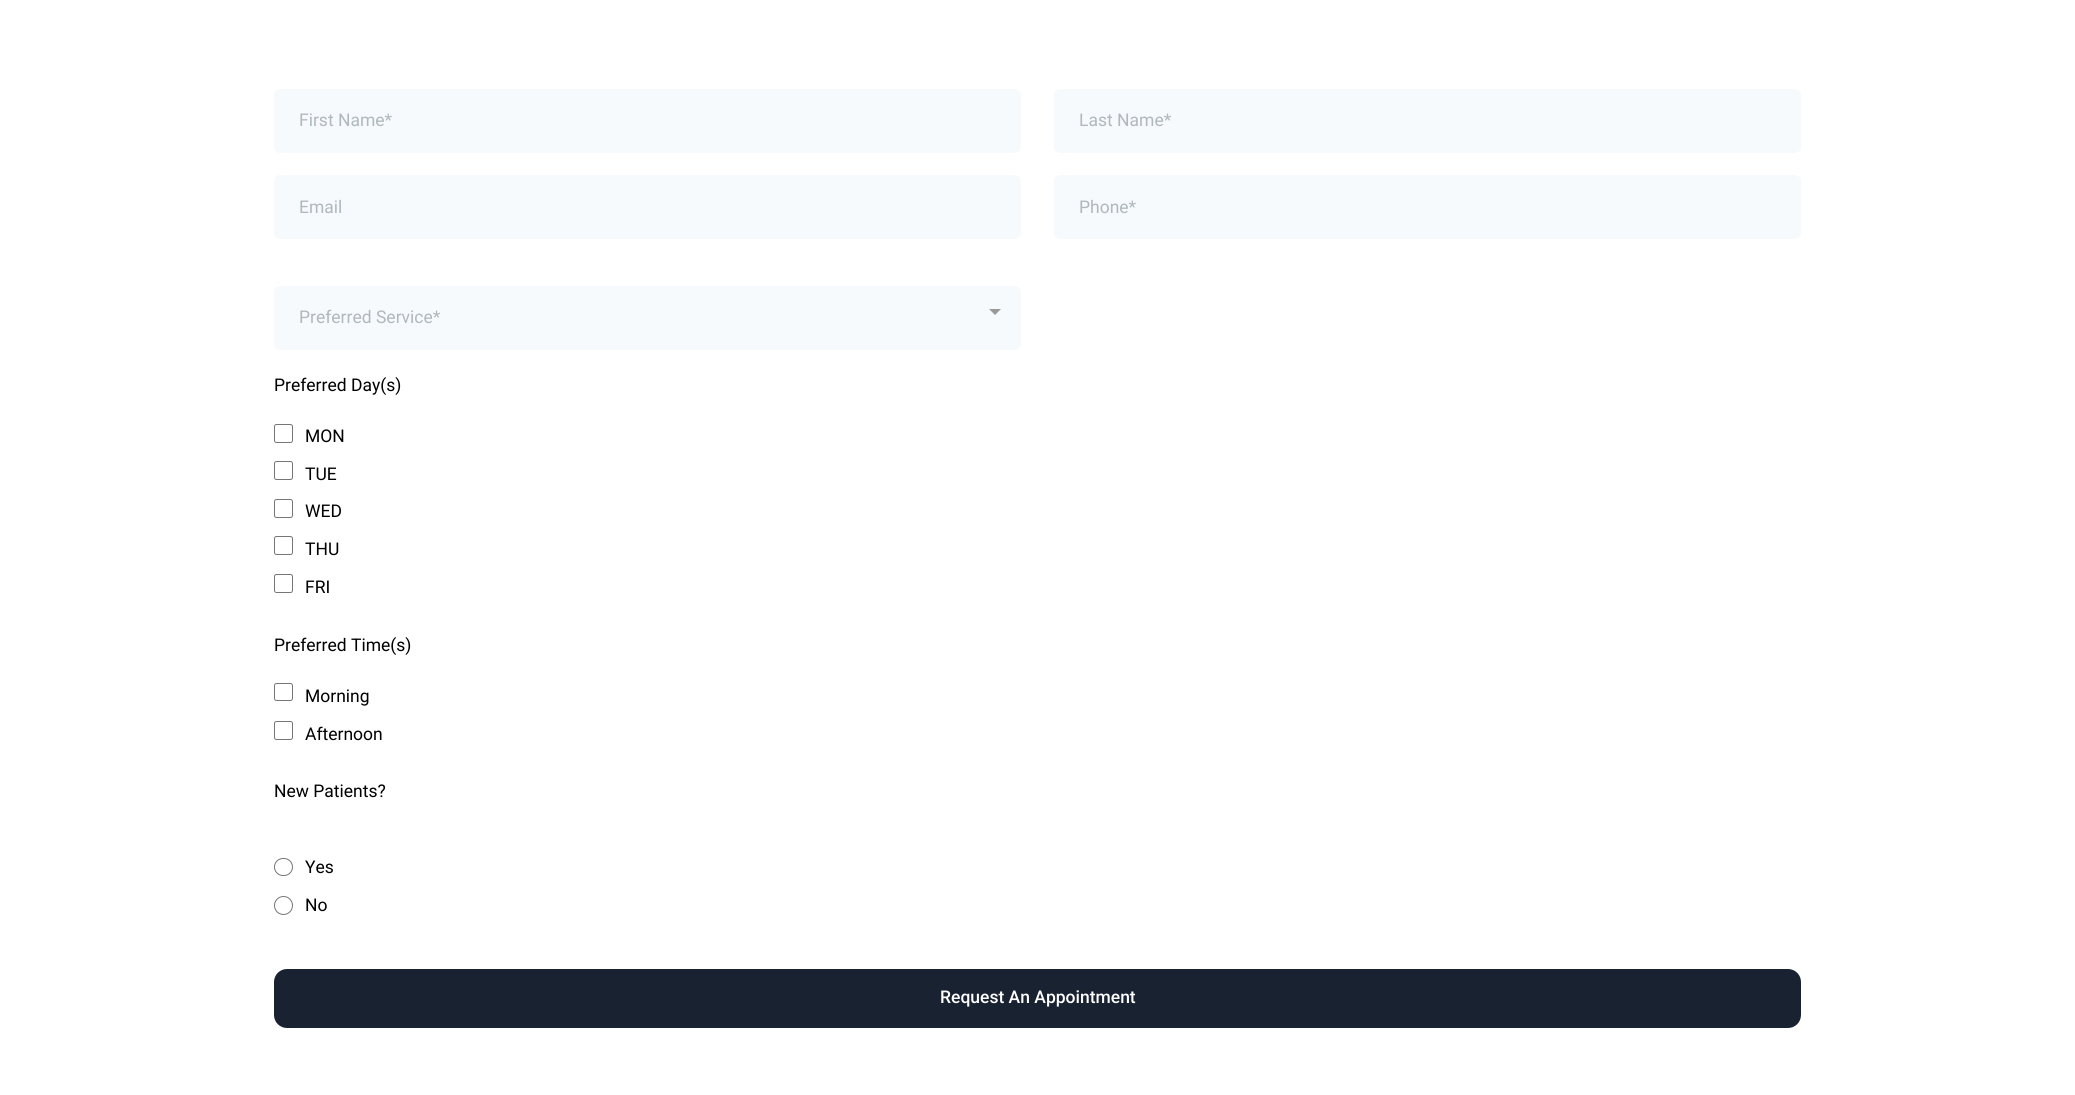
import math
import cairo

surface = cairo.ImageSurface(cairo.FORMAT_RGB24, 2075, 1095)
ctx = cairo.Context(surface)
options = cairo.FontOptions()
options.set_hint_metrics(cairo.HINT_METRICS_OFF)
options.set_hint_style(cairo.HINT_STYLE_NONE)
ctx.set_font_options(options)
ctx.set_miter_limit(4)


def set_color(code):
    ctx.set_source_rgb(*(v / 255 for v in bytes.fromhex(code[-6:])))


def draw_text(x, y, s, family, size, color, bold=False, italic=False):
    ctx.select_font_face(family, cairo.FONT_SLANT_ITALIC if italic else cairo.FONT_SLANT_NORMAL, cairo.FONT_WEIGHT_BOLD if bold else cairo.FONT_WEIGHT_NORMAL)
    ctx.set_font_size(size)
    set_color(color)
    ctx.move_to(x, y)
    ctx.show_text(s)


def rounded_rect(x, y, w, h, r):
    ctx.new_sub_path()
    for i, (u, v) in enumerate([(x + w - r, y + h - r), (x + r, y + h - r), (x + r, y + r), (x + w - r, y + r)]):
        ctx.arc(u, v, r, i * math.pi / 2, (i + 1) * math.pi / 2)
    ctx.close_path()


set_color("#ffffff")
ctx.paint()
set_color("#f7fafc")
rounded_rect(274, 89, 747, 64, 6)
ctx.fill()
draw_text(299, 126, "First Name*", "Roboto", 17.5, "#afb8bc")
set_color("#f7fafc")
rounded_rect(1054, 89, 747, 64, 6)
ctx.fill()
draw_text(1079, 126, "Last Name*", "Roboto", 17.5, "#afb8bc")
set_color("#f7fafc")
rounded_rect(274, 175, 747, 64, 6)
ctx.fill()
draw_text(299, 213, "Email", "Roboto", 17.5, "#afb8bc")
set_color("#f7fafc")
rounded_rect(1054, 175, 747, 64, 6)
ctx.fill()
draw_text(1079, 213, "Phone*", "Roboto", 17.5, "#afb8bc")
set_color("#f7fafc")
rounded_rect(274, 286, 747, 64, 6)
ctx.fill()
draw_text(299, 323, "Preferred Service*", "Roboto", 17.5, "#afb8bc")
set_color("#999999")
ctx.new_path()
ctx.move_to(989, 309)
ctx.line_to(1001, 309)
ctx.line_to(995, 315)
ctx.close_path()
ctx.fill()
draw_text(274, 391, "Preferred Day(s)", "Roboto", 17.5, "#000000")
rounded_rect(274.5, 424.5, 18, 18, 2)
set_color("#767676")
ctx.set_line_width(1)
ctx.stroke()
draw_text(305, 442, "MON", "Roboto", 17.5, "#000000")
rounded_rect(274.5, 461.5, 18, 18, 2)
set_color("#767676")
ctx.stroke()
draw_text(305, 480, "TUE", "Roboto", 17.5, "#000000")
rounded_rect(274.5, 499.5, 18, 18, 2)
set_color("#767676")
ctx.stroke()
draw_text(305, 517, "WED", "Roboto", 17.5, "#000000")
rounded_rect(274.5, 536.5, 18, 18, 2)
set_color("#767676")
ctx.stroke()
draw_text(305, 555, "THU", "Roboto", 17.5, "#000000")
rounded_rect(274.5, 574.5, 18, 18, 2)
set_color("#767676")
ctx.stroke()
draw_text(305, 593, "FRI", "Roboto", 17.5, "#000000")
draw_text(274, 651, "Preferred Time(s)", "Roboto", 17.5, "#000000")
rounded_rect(274.5, 683.5, 18, 17, 2)
set_color("#767676")
ctx.stroke()
draw_text(305, 702, "Morning", "Roboto", 17.5, "#000000")
rounded_rect(274.5, 721.5, 18, 18, 2)
set_color("#767676")
ctx.stroke()
draw_text(305, 740, "Afternoon", "Roboto", 17.5, "#000000")
draw_text(274, 797, "New Patients?", "Roboto", 17.5, "#000000")
rounded_rect(274.5, 858.5, 18, 17, 8.5)
set_color("#767676")
ctx.stroke()
draw_text(305, 873, "Yes", "Roboto", 17.5, "#000000")
ctx.new_path()
ctx.arc(283.5, 905.5, 9, 0, 2 * math.pi)
set_color("#767676")
ctx.stroke()
draw_text(305, 911, "No", "Roboto", 17.5, "#000000")
set_color("#192231")
rounded_rect(274, 969, 1527, 59, 13)
ctx.fill()
draw_text(940, 1003, "Request An Appointment", "Roboto Medium", 17.5, "#ffffff")
surface.write_to_png("output.png")
